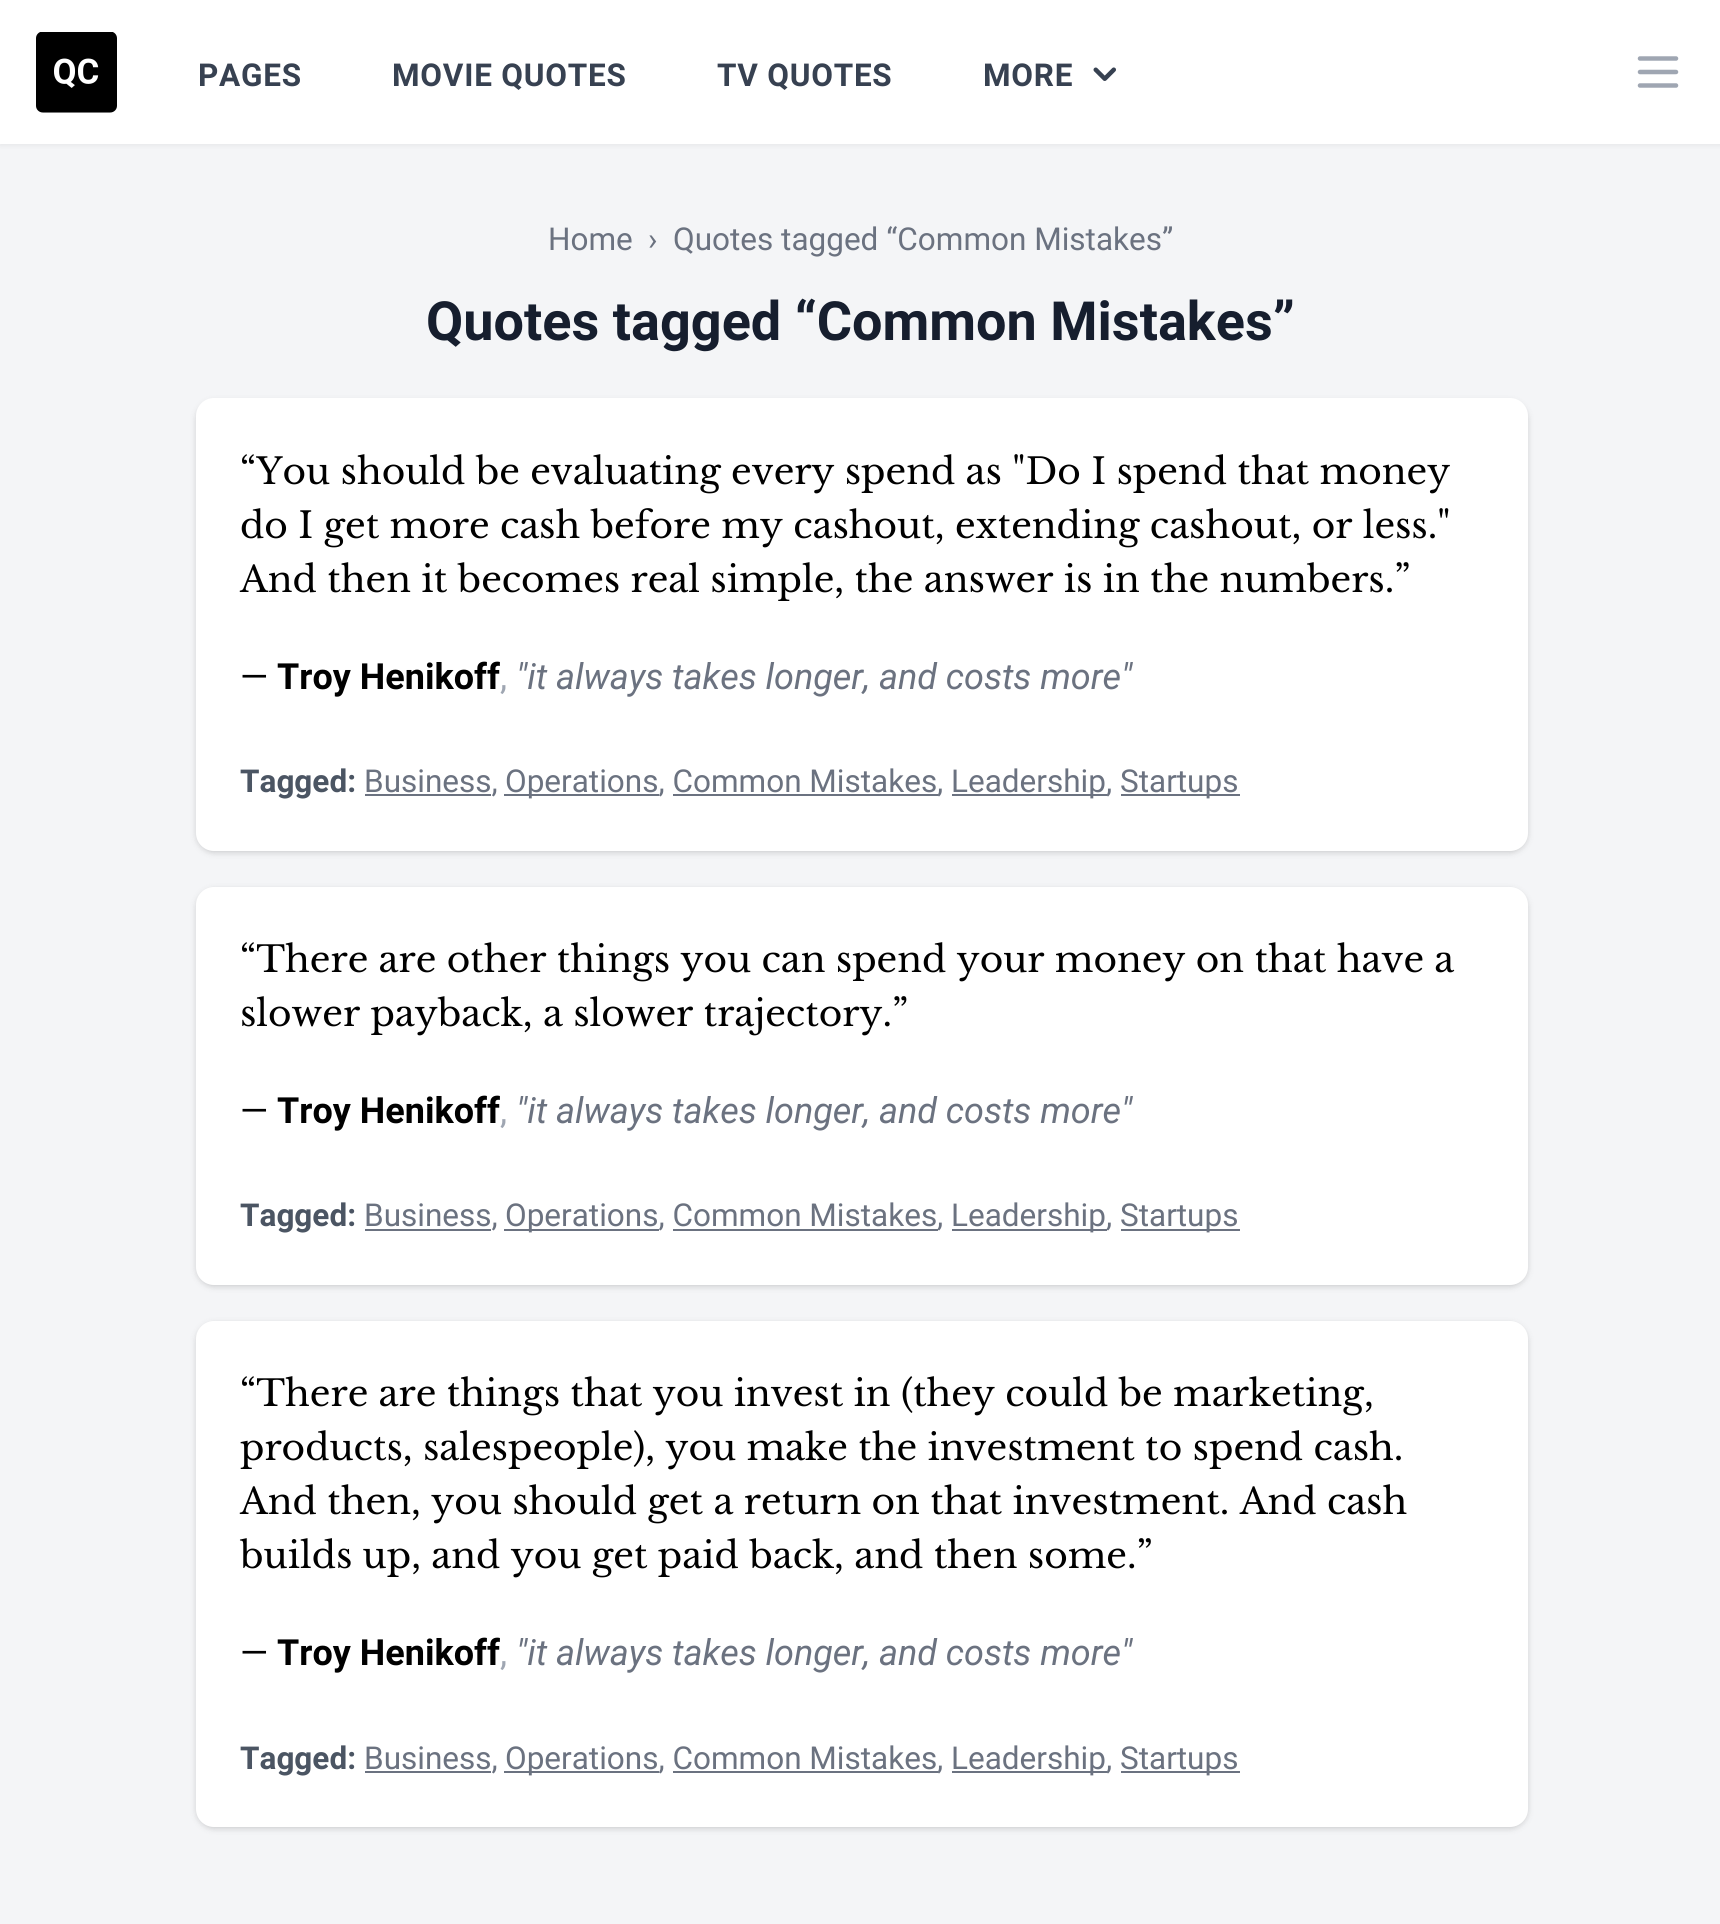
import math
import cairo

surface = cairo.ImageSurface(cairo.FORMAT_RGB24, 1720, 1924)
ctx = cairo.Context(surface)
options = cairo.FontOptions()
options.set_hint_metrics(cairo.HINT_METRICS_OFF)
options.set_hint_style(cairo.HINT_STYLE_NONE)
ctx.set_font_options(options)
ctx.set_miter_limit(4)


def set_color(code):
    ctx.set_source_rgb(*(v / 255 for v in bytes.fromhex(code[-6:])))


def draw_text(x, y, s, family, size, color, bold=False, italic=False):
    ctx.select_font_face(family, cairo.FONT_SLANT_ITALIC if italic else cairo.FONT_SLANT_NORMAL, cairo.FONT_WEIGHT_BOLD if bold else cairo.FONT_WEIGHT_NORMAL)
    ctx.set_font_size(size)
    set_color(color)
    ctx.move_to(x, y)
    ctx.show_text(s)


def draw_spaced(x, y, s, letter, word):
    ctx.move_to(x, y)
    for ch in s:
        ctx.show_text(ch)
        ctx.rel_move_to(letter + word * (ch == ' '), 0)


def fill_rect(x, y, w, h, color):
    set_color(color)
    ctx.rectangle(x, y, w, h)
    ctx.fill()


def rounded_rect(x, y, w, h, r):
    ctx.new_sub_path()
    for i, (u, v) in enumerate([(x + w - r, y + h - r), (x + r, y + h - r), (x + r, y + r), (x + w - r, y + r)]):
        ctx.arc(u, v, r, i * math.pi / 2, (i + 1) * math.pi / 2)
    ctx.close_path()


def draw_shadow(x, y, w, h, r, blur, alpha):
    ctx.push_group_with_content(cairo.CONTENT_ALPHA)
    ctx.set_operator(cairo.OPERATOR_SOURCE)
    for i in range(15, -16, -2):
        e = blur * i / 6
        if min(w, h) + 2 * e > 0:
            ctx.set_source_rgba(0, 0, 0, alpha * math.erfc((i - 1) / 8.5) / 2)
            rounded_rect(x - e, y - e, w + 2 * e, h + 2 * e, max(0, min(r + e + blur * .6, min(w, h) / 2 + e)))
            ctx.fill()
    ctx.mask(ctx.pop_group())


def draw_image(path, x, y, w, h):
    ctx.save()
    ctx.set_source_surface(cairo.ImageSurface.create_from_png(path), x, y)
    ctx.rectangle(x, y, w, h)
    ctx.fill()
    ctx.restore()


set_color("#f4f5f7")
ctx.paint()
set_color("#000000")
draw_shadow(0, 2, 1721, 144, 0, 2, 0.05)
fill_rect(0, 0, 1720, 144, "#ffffff")
draw_image("assets/img1.png", 36, 32, 81, 81)
ctx.select_font_face("Roboto", cairo.FONT_SLANT_NORMAL, cairo.FONT_WEIGHT_BOLD)
ctx.set_font_size(31.5)
set_color("#374151")
draw_spaced(198, 86, "PAGES", 0.75, 0)
draw_spaced(392, 86, "MOVIE QUOTES", 0.75, 0)
draw_spaced(717, 86, "TV QUOTES", 0.75, 0)
draw_spaced(983, 86, "MORE", 0.75, 0)
draw_image("assets/img2.png", 1093, 67, 23, 14)
ctx.new_path()
ctx.move_to(1640, 58.5)
ctx.line_to(1676, 58.5)
ctx.move_to(1640, 72)
ctx.line_to(1676, 72)
ctx.move_to(1640, 85.5)
ctx.line_to(1676, 85.5)
set_color("#9fa6b2")
ctx.set_line_width(4.5)
ctx.set_line_cap(cairo.LINE_CAP_ROUND)
ctx.set_line_join(cairo.LINE_JOIN_ROUND)
ctx.stroke()
draw_text(548, 250, "Home", "Roboto", 31.5, "#6b7280")
draw_text(648, 250, "›", "Roboto", 31.5, "#6b7280")
draw_text(673, 250, "Quotes tagged “Common Mistakes”", "Roboto", 31.5, "#6b7280")
draw_text(426, 340, "Quotes tagged “Common Mistakes”", "Roboto", 54, "#161e2e", bold=True)
set_color("#000000")
draw_shadow(196, 401, 1332, 452, 18, 2, 0.06)
draw_shadow(196, 401, 1332, 452, 18, 3.5, 0.1)
set_color("#ffffff")
rounded_rect(196, 398, 1332, 453, 18)
ctx.fill()
draw_text(240, 484, "“You should be evaluating every spend as \"Do I spend that money", "Libre Baskerville", 36, "#000000")
draw_text(240, 538, "do I get more cash before my cashout, extending cashout, or less.\"", "Libre Baskerville", 36, "#000000")
draw_text(240, 592, "And then it becomes real simple, the answer is in the numbers.”", "Libre Baskerville", 36, "#000000")
draw_text(240, 689, "—", "Roboto", 36, "#000000")
draw_text(277, 689, "Troy Henikoff", "Roboto", 36, "#000000", bold=True)
draw_text(516, 689, "\"it always takes longer, and costs more\"", "Roboto", 36, "#6b7280", italic=True)
draw_text(500, 689, ",", "Roboto", 36, "#9fa6b2")
draw_text(240, 792, "Tagged:", "Roboto", 31.5, "#4b5563", bold=True)
fill_rect(365, 794, 126, 2, "#6b7280")
draw_text(364, 792, "Business,", "Roboto", 31.5, "#6b7280")
fill_rect(504, 794, 155, 2, "#6b7280")
draw_text(505, 792, "Operations, Common Mistakes", "Roboto", 31.5, "#6b7280")
fill_rect(673, 794, 265, 2, "#6b7280")
draw_text(937, 792, ",", "Roboto", 31.5, "#6b7280")
fill_rect(952, 794, 155, 2, "#6b7280")
draw_text(951, 792, "Leadership,", "Roboto", 31.5, "#6b7280")
fill_rect(1121, 794, 119, 2, "#6b7280")
draw_text(1120, 792, "Startups", "Roboto", 31.5, "#6b7280")
set_color("#000000")
draw_shadow(196, 889, 1332, 398, 18, 2, 0.06)
draw_shadow(196, 889, 1332, 398, 18, 3.5, 0.1)
set_color("#ffffff")
rounded_rect(196, 887, 1332, 398, 18)
ctx.fill()
draw_text(240, 972, "“There are other things you can spend your money on that have a", "Libre Baskerville", 36, "#000000")
draw_text(240, 1026, "slower payback, a slower trajectory.”", "Libre Baskerville", 36, "#000000")
draw_text(240, 1123, "—", "Roboto", 36, "#000000")
draw_text(277, 1123, "Troy Henikoff", "Roboto", 36, "#000000", bold=True)
draw_text(516, 1123, "\"it always takes longer, and costs more\"", "Roboto", 36, "#6b7280", italic=True)
draw_text(500, 1123, ",", "Roboto", 36, "#9fa6b2")
draw_text(240, 1226, "Tagged:", "Roboto", 31.5, "#4b5563", bold=True)
fill_rect(365, 1229, 126, 2, "#6b7280")
draw_text(364, 1226, "Business,", "Roboto", 31.5, "#6b7280")
fill_rect(504, 1229, 155, 2, "#6b7280")
draw_text(505, 1226, "Operations, Common Mistakes", "Roboto", 31.5, "#6b7280")
fill_rect(673, 1229, 265, 2, "#6b7280")
draw_text(937, 1226, ",", "Roboto", 31.5, "#6b7280")
fill_rect(952, 1229, 155, 2, "#6b7280")
draw_text(951, 1226, "Leadership,", "Roboto", 31.5, "#6b7280")
fill_rect(1121, 1229, 119, 2, "#6b7280")
draw_text(1120, 1226, "Startups", "Roboto", 31.5, "#6b7280")
set_color("#000000")
draw_shadow(196, 1323, 1332, 506, 18, 2, 0.06)
draw_shadow(196, 1323, 1332, 506, 18, 3.5, 0.1)
set_color("#ffffff")
rounded_rect(196, 1321, 1332, 506, 18)
ctx.fill()
draw_text(240, 1406, "“There are things that you invest in (they could be marketing,", "Libre Baskerville", 36, "#000000")
draw_text(240, 1460, "products, salespeople), you make the investment to spend cash.", "Libre Baskerville", 36, "#000000")
draw_text(240, 1514, "And then, you should get a return on that investment. And cash", "Libre Baskerville", 36, "#000000")
draw_text(240, 1568, "builds up, and you get paid back, and then some.”", "Libre Baskerville", 36, "#000000")
draw_text(240, 1665, "—", "Roboto", 36, "#000000")
draw_text(277, 1665, "Troy Henikoff", "Roboto", 36, "#000000", bold=True)
draw_text(516, 1665, "\"it always takes longer, and costs more\"", "Roboto", 36, "#6b7280", italic=True)
draw_text(500, 1665, ",", "Roboto", 36, "#9fa6b2")
draw_text(240, 1769, "Tagged:", "Roboto", 31.5, "#4b5563", bold=True)
fill_rect(365, 1771, 126, 2, "#6b7280")
draw_text(364, 1769, "Business,", "Roboto", 31.5, "#6b7280")
fill_rect(504, 1771, 155, 2, "#6b7280")
draw_text(505, 1769, "Operations, Common Mistakes", "Roboto", 31.5, "#6b7280")
fill_rect(673, 1771, 265, 2, "#6b7280")
draw_text(937, 1769, ",", "Roboto", 31.5, "#6b7280")
fill_rect(952, 1771, 155, 2, "#6b7280")
draw_text(951, 1769, "Leadership,", "Roboto", 31.5, "#6b7280")
fill_rect(1121, 1771, 119, 2, "#6b7280")
draw_text(1120, 1769, "Startups", "Roboto", 31.5, "#6b7280")
surface.write_to_png("output.png")
